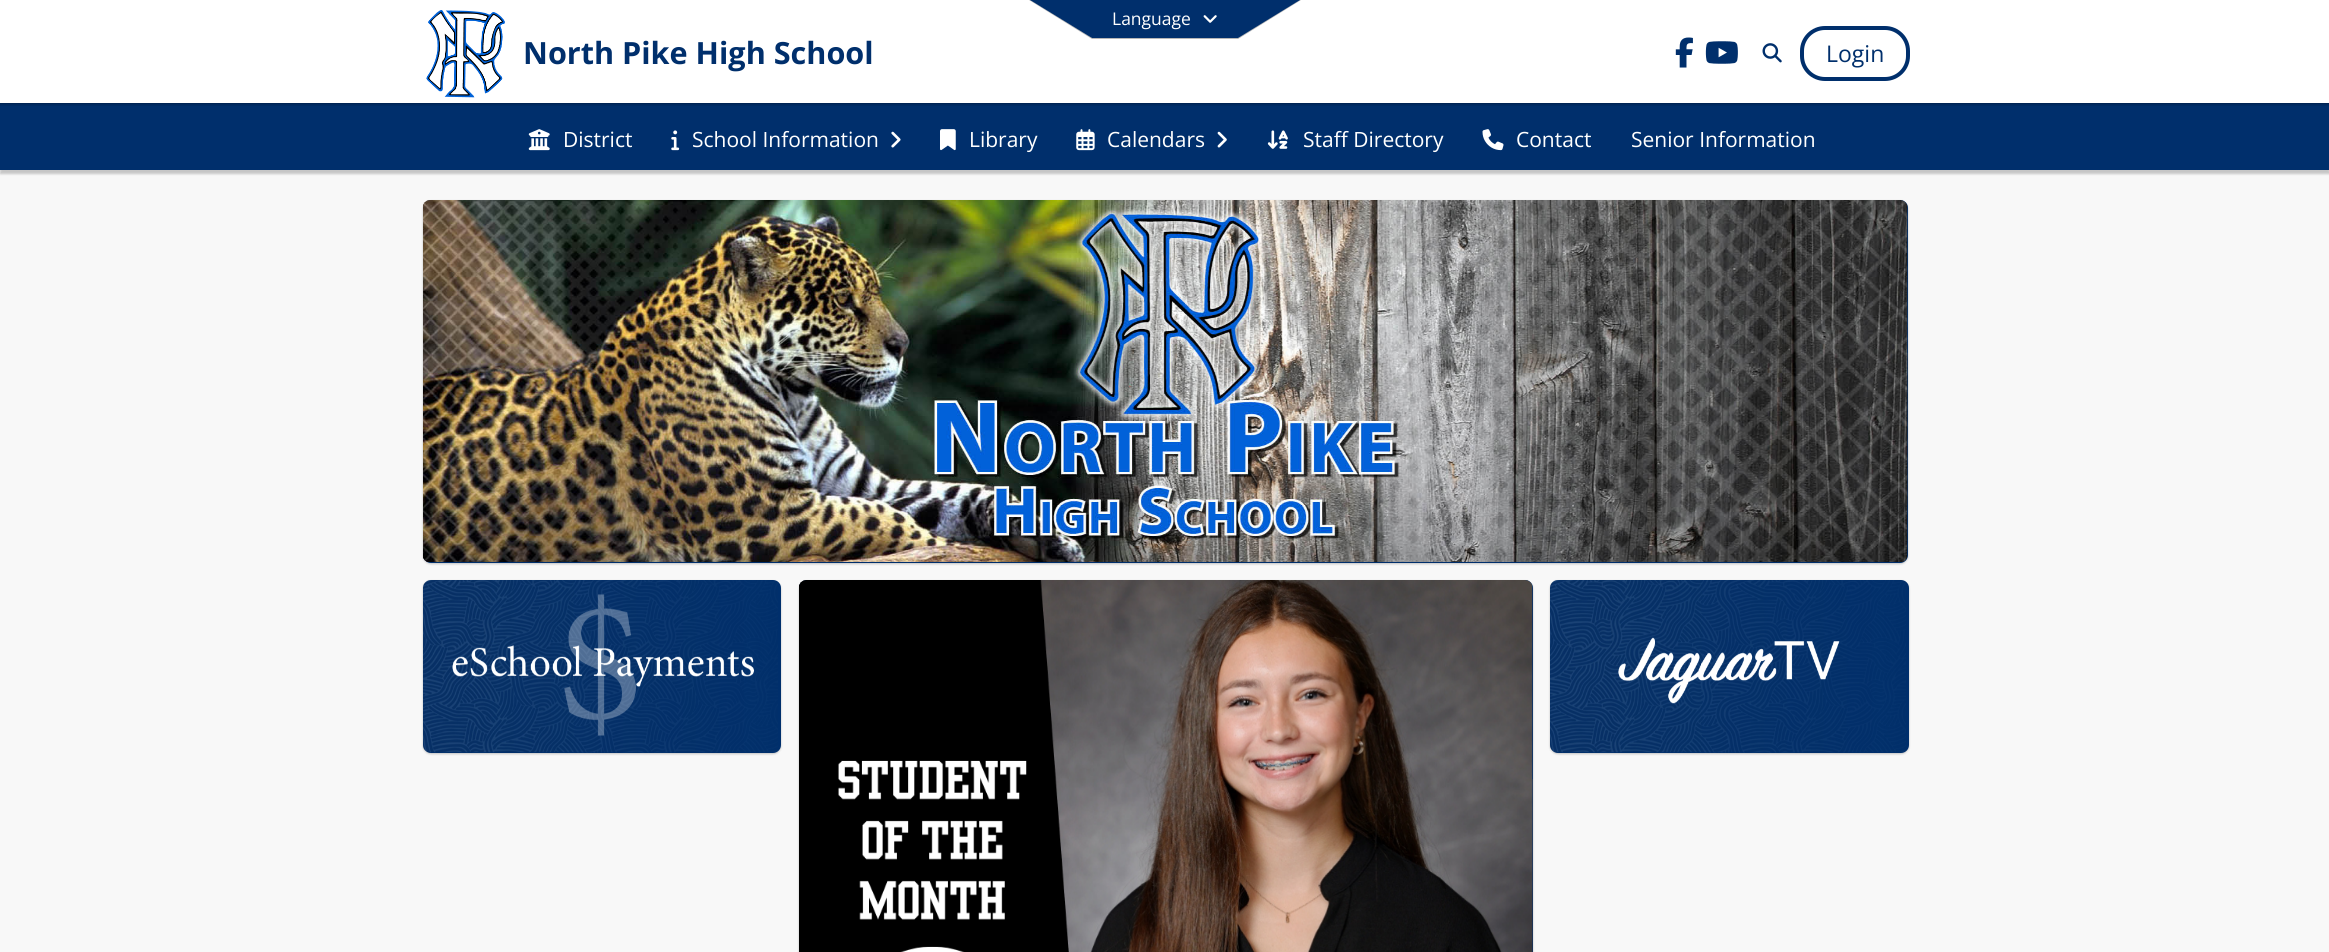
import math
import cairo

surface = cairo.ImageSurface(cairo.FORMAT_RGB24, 2329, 952)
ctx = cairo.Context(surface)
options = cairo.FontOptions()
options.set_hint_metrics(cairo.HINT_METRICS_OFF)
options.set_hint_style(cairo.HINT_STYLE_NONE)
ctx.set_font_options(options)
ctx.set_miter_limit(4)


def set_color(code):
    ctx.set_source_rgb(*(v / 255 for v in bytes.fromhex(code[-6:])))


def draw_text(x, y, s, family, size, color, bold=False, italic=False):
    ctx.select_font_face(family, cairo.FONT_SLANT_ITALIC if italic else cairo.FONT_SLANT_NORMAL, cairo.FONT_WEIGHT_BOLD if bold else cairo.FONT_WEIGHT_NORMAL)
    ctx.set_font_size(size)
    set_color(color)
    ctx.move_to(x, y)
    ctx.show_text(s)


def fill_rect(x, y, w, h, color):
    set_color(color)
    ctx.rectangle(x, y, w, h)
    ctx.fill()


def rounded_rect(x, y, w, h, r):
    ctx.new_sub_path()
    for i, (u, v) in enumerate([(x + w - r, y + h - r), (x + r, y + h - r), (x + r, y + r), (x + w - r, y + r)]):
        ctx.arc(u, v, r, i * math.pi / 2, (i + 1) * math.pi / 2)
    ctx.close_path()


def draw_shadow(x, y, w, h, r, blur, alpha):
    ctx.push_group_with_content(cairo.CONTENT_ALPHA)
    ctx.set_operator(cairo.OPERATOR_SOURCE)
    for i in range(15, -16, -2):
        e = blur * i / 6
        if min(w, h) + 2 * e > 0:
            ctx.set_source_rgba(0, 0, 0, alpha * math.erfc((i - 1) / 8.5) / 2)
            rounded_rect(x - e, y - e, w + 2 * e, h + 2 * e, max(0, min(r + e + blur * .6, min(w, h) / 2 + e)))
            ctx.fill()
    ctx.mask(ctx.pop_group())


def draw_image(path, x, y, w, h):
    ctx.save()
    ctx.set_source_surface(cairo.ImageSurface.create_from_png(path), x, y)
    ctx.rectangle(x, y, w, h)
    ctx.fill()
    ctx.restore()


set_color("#f8f8f8")
ctx.paint()
set_color("#000000")
draw_shadow(0, 106, 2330, 68, 0, 1, 0.2)
fill_rect(0, 106, 2329, 64, "#002f6c")
fill_rect(0, 104, 2329, 2, "#002c66")
fill_rect(0, 103, 2329, 1, "#00285c")
set_color("#000000")
draw_shadow(0, 3, 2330, 102, 0, 1, 0.1)
fill_rect(0, 0, 2329, 103, "#ffffff")
set_color("#b7b7b7")
ctx.new_path()
ctx.move_to(1029, 0)
ctx.line_to(1092, 39)
ctx.line_to(1238, 39)
ctx.line_to(1301, 0)
ctx.close_path()
ctx.fill()
set_color("#002f6c")
ctx.new_path()
ctx.move_to(1030, 0)
ctx.line_to(1092, 38)
ctx.line_to(1238, 38)
ctx.line_to(1300, 0)
ctx.close_path()
ctx.fill()
draw_text(1112, 25, "Language", "Open Sans", 17.5, "#ffffff")
draw_image("assets/img1.png", 1203, 15, 14, 8)
draw_image("assets/img2.png", 426, 10, 79, 88)
draw_text(523, 64, "North Pike High School", "Open Sans", 30.6, "#002f6c", bold=True)
draw_image("assets/img3.png", 1675, 37, 18, 31)
draw_image("assets/img4.png", 1705, 41, 33, 23)
draw_image("assets/img5.png", 1762, 43, 20, 20)
rounded_rect(1802, 28, 106, 51, 23)
ctx.set_line_width(4)
ctx.stroke()
draw_text(1826, 62, "Login", "Open Sans", 23, "#002f6c")
draw_image("assets/img6.png", 528, 129, 22, 22)
draw_text(563, 147, "District", "Open Sans", 21, "#ffffff")
draw_image("assets/img7.png", 671, 130, 9, 21)
draw_text(692, 147, "School Information", "Open Sans", 21, "#ffffff")
draw_image("assets/img8.png", 891, 131, 10, 17)
draw_image("assets/img9.png", 940, 129, 16, 22)
draw_text(969, 147, "Library", "Open Sans", 21, "#ffffff")
draw_image("assets/img10.png", 1076, 129, 19, 22)
draw_text(1107, 147, "Calendars", "Open Sans", 21, "#ffffff")
draw_image("assets/img11.png", 1217, 131, 10, 17)
draw_image("assets/img12.png", 1267, 130, 21, 19)
draw_text(1303, 147, "Staff Directory", "Open Sans", 21, "#ffffff")
draw_image("assets/img13.png", 1482, 129, 22, 22)
draw_text(1516, 147, "Contact", "Open Sans", 21, "#ffffff")
draw_text(1631, 147, "Senior Information", "Open Sans", 21, "#ffffff")
set_color("#000000")
draw_shadow(423, 201, 1485, 363, 8, 1, 0.22)
set_color("#002f6c")
rounded_rect(423, 200, 1485, 363, 8)
ctx.fill()
draw_image("assets/img14.png", 423, 200, 1485, 362)
set_color("#000000")
draw_shadow(423, 581, 358, 173, 8, 1, 0.22)
set_color("#002f6c")
rounded_rect(423, 580, 358, 173, 8)
ctx.fill()
draw_image("assets/img15.png", 423, 580, 355, 173)
set_color("#000000")
draw_shadow(799, 581, 734, 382, 8, 1, 0.22)
set_color("#002f6c")
rounded_rect(799, 580, 734, 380, 8)
ctx.fill()
draw_image("assets/img16.png", 799, 580, 734, 372)
set_color("#000000")
draw_shadow(1550, 581, 359, 173, 8, 1, 0.22)
set_color("#002f6c")
rounded_rect(1550, 580, 359, 173, 8)
ctx.fill()
draw_image("assets/img17.png", 1550, 580, 356, 173)
surface.write_to_png("output.png")
